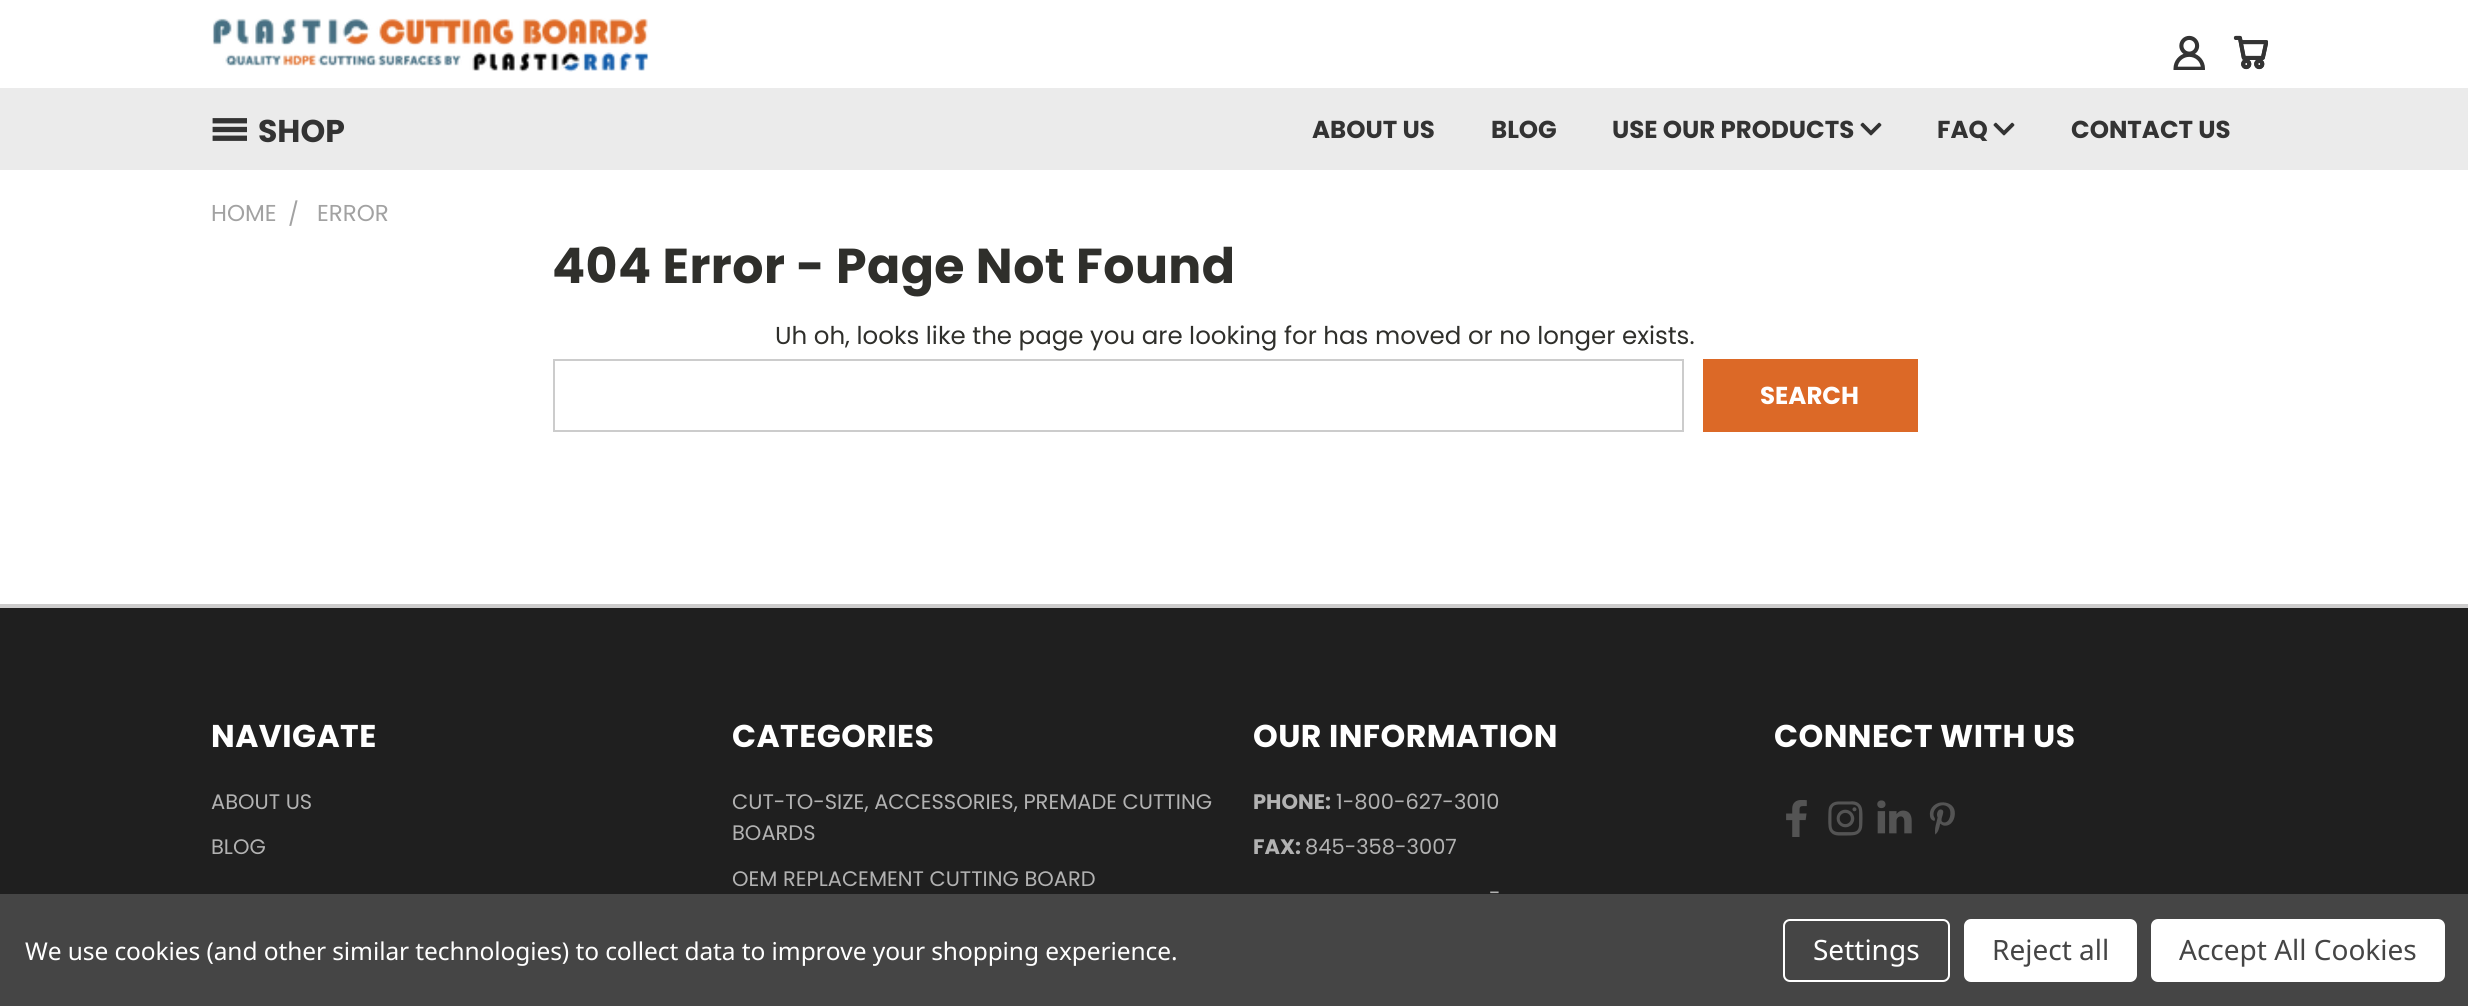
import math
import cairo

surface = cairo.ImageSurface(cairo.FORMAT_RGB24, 2468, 1006)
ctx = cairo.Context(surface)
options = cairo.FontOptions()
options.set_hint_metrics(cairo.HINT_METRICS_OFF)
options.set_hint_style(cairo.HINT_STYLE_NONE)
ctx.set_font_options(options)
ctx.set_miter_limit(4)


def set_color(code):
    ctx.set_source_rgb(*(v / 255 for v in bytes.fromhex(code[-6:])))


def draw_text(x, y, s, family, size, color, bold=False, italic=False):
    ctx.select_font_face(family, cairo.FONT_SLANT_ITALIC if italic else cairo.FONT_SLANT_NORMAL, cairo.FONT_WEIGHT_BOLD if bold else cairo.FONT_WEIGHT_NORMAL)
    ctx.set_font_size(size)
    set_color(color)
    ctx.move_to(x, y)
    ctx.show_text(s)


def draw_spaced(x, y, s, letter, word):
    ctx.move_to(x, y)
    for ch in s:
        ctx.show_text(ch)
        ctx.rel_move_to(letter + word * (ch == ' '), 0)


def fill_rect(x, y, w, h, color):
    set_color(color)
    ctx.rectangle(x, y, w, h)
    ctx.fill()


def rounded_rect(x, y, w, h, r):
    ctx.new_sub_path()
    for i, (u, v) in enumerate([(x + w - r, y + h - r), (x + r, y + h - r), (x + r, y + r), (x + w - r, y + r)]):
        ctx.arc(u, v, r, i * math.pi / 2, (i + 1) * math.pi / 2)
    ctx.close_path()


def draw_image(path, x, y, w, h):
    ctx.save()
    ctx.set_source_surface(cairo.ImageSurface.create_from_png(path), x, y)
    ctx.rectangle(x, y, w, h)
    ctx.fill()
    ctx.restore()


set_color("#ffffff")
ctx.paint()
draw_image("assets/img1.png", 212, 18, 437, 54)
draw_image("assets/img2.png", 2173, 35, 32, 35)
draw_image("assets/img3.png", 2233, 35, 35, 35)
fill_rect(0, 88, 2468, 82, "#ebebeb")
draw_image("assets/img4.png", 212, 118, 35, 23)
draw_text(258, 142, "SHOP", "Poppins", 31.5, "#333333", bold=True)
draw_text(1312, 138, "ABOUT US", "Poppins", 24.5, "#333333", bold=True)
draw_text(1491, 138, "BLOG", "Poppins", 24.5, "#333333", bold=True)
draw_text(1612, 138, "USE OUR PRODUCTS", "Poppins", 24.5, "#333333", bold=True)
draw_image("assets/img5.png", 1860, 122, 22, 14)
draw_text(1937, 138, "FAQ", "Poppins", 24.5, "#333333", bold=True)
draw_image("assets/img5.png", 1993, 122, 22, 14)
draw_text(2071, 138, "CONTACT US", "Poppins", 24.5, "#333333", bold=True)
draw_text(211, 221, "HOME", "Poppins", 23, "#a2a2a2")
draw_text(288, 222, "/", "Poppins", 23, "#a2a2a2")
draw_text(317, 221, "ERROR", "Poppins", 23, "#a2a2a2")
ctx.select_font_face("Poppins", cairo.FONT_SLANT_NORMAL, cairo.FONT_WEIGHT_BOLD)
ctx.set_font_size(49)
set_color("#2f2f2b")
draw_spaced(552, 283, "404 Error - Page Not Found", 0.45, 0)
draw_text(775, 344, "Uh oh, looks like the page you are looking for has moved or no longer exists.", "Poppins", 24.5, "#2f2f2b")
ctx.rectangle(554, 360, 1129, 71)
set_color("#cccccc")
ctx.stroke()
fill_rect(1703, 359, 215, 73, "#dc6927")
draw_text(1760, 404, "SEARCH", "Poppins", 24.5, "#ffffff", bold=True)
fill_rect(0, 608, 2468, 286, "#1f1f1f")
fill_rect(0, 604, 2468, 4, "#cdcccc")
ctx.set_font_size(31.5)
set_color("#ffffff")
draw_spaced(211, 747, "NAVIGATE", 0.45, 0)
draw_text(211, 809, "ABOUT US", "Poppins", 21, "#b2b2b2")
draw_text(211, 854, "BLOG", "Poppins", 21, "#b2b2b2")
ctx.select_font_face("Poppins", cairo.FONT_SLANT_NORMAL, cairo.FONT_WEIGHT_BOLD)
ctx.set_font_size(31.5)
set_color("#ffffff")
draw_spaced(732, 747, "CATEGORIES", 0.45, 0)
draw_text(732, 809, "CUT-TO-SIZE, ACCESSORIES, PREMADE CUTTING", "Poppins", 21, "#b2b2b2")
draw_text(732, 840, "BOARDS", "Poppins", 21, "#b2b2b2")
draw_text(732, 886, "OEM REPLACEMENT CUTTING BOARD", "Poppins", 21, "#b2b2b2")
ctx.select_font_face("Poppins", cairo.FONT_SLANT_NORMAL, cairo.FONT_WEIGHT_BOLD)
ctx.set_font_size(31.5)
set_color("#ffffff")
draw_spaced(1253, 747, "OUR INFORMATION", 0.45, 0)
draw_text(1253, 809, "PHONE:", "Poppins", 21, "#b2b2b2", bold=True)
draw_text(1336, 809, "1-800-627-3010", "Poppins", 21, "#b2b2b2")
draw_text(1253, 854, "FAX:", "Poppins", 21, "#b2b2b2", bold=True)
draw_text(1305, 854, "845-358-3007", "Poppins", 21, "#b2b2b2")
draw_text(1489, 900, "-", "Poppins", 21, "#b2b2b2")
ctx.select_font_face("Poppins", cairo.FONT_SLANT_NORMAL, cairo.FONT_WEIGHT_BOLD)
ctx.set_font_size(31.5)
set_color("#ffffff")
draw_spaced(1774, 747, "CONNECT WITH US", 0.45, 0)
draw_image("assets/img6.png", 1786, 800, 21, 37)
draw_image("assets/img7.png", 1828, 801, 35, 35)
draw_image("assets/img8.png", 1877, 800, 35, 34)
draw_image("assets/img9.png", 1929, 802, 26, 33)
fill_rect(0, 894, 2468, 112, "#454545")
ctx.select_font_face("Noto Sans")
ctx.set_font_size(24.5)
set_color("#ffffff")
draw_spaced(25, 960, "We use cookies (and other similar technologies) to collect data to improve your shopping experience.", -0.09, 0)
rounded_rect(1784, 920, 165, 61, 6)
ctx.stroke()
draw_text(1813, 960, "Settings", "Noto Sans", 28, "#ffffff")
rounded_rect(1964, 919, 173, 63, 7)
ctx.fill()
draw_text(1992, 960, "Reject all", "Noto Sans", 28, "#454545")
set_color("#ffffff")
rounded_rect(2151, 919, 294, 63, 7)
ctx.fill()
draw_text(2179, 960, "Accept All Cookies", "Noto Sans", 28, "#454545")
surface.write_to_png("output.png")
